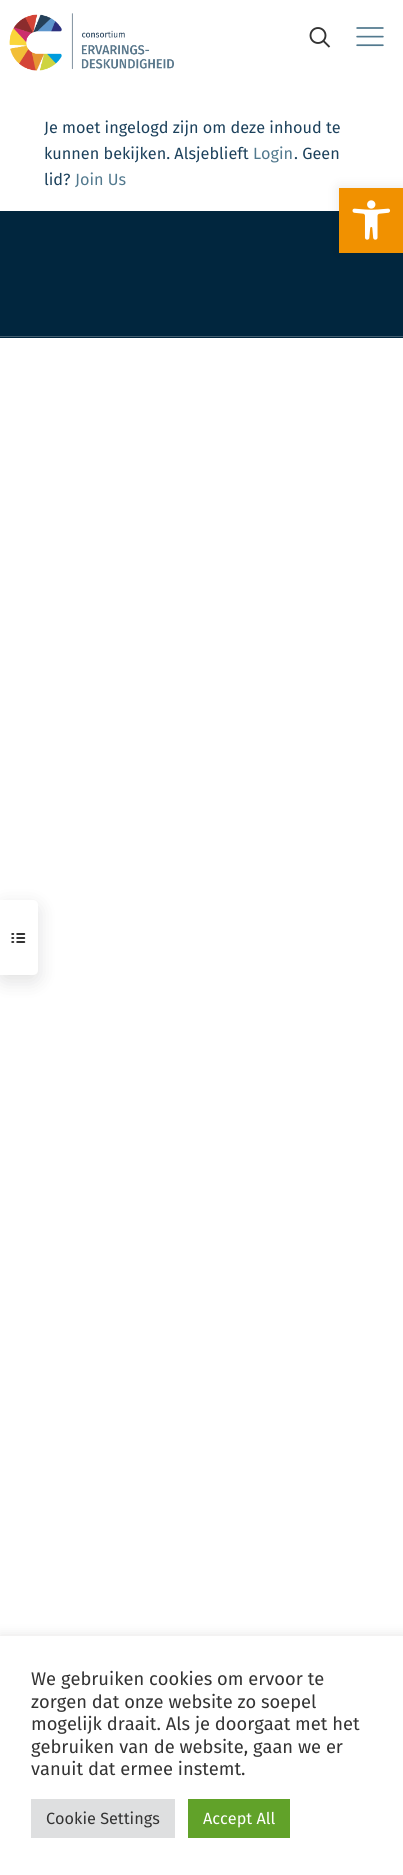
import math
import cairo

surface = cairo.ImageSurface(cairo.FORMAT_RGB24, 403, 1875)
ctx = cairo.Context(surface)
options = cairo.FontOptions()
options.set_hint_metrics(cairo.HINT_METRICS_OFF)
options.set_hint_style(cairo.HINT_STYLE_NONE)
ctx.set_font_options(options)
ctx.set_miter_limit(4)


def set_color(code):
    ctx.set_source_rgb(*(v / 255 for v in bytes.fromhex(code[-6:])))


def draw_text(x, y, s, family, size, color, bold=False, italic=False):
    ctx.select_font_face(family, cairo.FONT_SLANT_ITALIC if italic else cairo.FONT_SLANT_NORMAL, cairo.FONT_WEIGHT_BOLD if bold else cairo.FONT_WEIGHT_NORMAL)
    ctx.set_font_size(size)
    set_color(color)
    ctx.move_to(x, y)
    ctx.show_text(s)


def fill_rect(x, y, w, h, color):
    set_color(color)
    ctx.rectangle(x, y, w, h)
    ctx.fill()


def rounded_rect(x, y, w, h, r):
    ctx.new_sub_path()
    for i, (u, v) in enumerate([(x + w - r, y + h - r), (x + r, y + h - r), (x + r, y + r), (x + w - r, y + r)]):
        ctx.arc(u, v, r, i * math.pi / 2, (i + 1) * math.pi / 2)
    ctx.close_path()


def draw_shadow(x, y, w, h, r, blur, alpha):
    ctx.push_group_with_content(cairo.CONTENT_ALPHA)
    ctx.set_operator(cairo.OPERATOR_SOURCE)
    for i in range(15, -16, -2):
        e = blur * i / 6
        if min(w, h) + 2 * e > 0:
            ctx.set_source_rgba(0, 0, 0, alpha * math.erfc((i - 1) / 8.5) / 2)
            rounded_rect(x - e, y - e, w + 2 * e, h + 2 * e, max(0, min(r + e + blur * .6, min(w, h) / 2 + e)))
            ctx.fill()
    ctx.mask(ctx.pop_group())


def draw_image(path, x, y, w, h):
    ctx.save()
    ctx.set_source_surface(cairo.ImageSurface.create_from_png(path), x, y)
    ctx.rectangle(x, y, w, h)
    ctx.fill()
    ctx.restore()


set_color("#ffffff")
ctx.paint()
draw_image("assets/img1.png", 9, 13, 165, 58)
draw_image("assets/img2.png", 356, 27, 28, 20)
ctx.arc(318, 35.5, 7.5, 0, 2 * math.pi)
set_color("#333333")
ctx.set_line_width(1.9)
ctx.stroke()
ctx.new_path()
ctx.move_to(323, 40.5)
ctx.line_to(329.5, 47)
ctx.stroke()
draw_text(44, 133, "Je moet ingelogd zijn om deze inhoud te", "Fira Sans", 16.25, "#1c415c")
draw_text(44, 159, "kunnen bekijken. Alsjeblieft", "Fira Sans", 16.25, "#1c415c")
draw_text(253, 159, "Login", "Fira Sans", 16.25, "#52798e")
draw_text(294, 159, ". Geen", "Fira Sans", 16.25, "#1c415c")
draw_text(44, 185, "lid?", "Fira Sans", 16.25, "#1c415c")
draw_text(75, 185, "Join Us", "Fira Sans", 16.25, "#52798e")
fill_rect(0, 211, 403, 127, "#01263e")
fill_rect(0, 336, 403, 1, "#415c6e")
set_color("#000000")
draw_shadow(339, 188, 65, 65, 0, 6, 0.1)
fill_rect(339, 188, 64, 65, "#f19100")
draw_image("assets/img3.png", 352, 200, 39, 40)
set_color("#08080e")
draw_shadow(0, 906, 38, 75, 5, 9.5, 0.13)
set_color("#ffffff")
ctx.new_path()
ctx.move_to(0, 900)
ctx.line_to(33, 900)
ctx.curve_to(36, 900, 38, 902, 38, 905)
ctx.line_to(38, 970)
ctx.curve_to(38, 973, 36, 975, 33, 975)
ctx.line_to(0, 975)
ctx.close_path()
ctx.fill()
draw_image("assets/img4.png", 11, 933, 15, 10)
set_color("#acabab")
draw_shadow(0, 1635, 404, 239, 0, 6, 0.3)
fill_rect(0, 1636, 403, 239, "#ffffff")
draw_text(31, 1685, "We gebruiken cookies om ervoor te", "Fira Sans", 18.3, "#333333")
draw_text(31, 1708, "zorgen dat onze website zo soepel", "Fira Sans", 18.3, "#333333")
draw_text(31, 1730, "mogelijk draait. Als je doorgaat met het", "Fira Sans", 18.3, "#333333")
draw_text(31, 1753, "gebruiken van de website, gaan we er", "Fira Sans", 18.3, "#333333")
draw_text(31, 1775, "vanuit dat ermee instemt.", "Fira Sans", 18.3, "#333333")
fill_rect(31, 1799, 144, 39, "#dedfe0")
draw_text(46, 1824, "Cookie Settings", "Fira Sans", 16.25, "#333333")
fill_rect(188, 1799, 102, 39, "#61a229")
draw_text(203, 1824, "Accept All", "Fira Sans", 16.25, "#ffffff")
surface.write_to_png("output.png")
